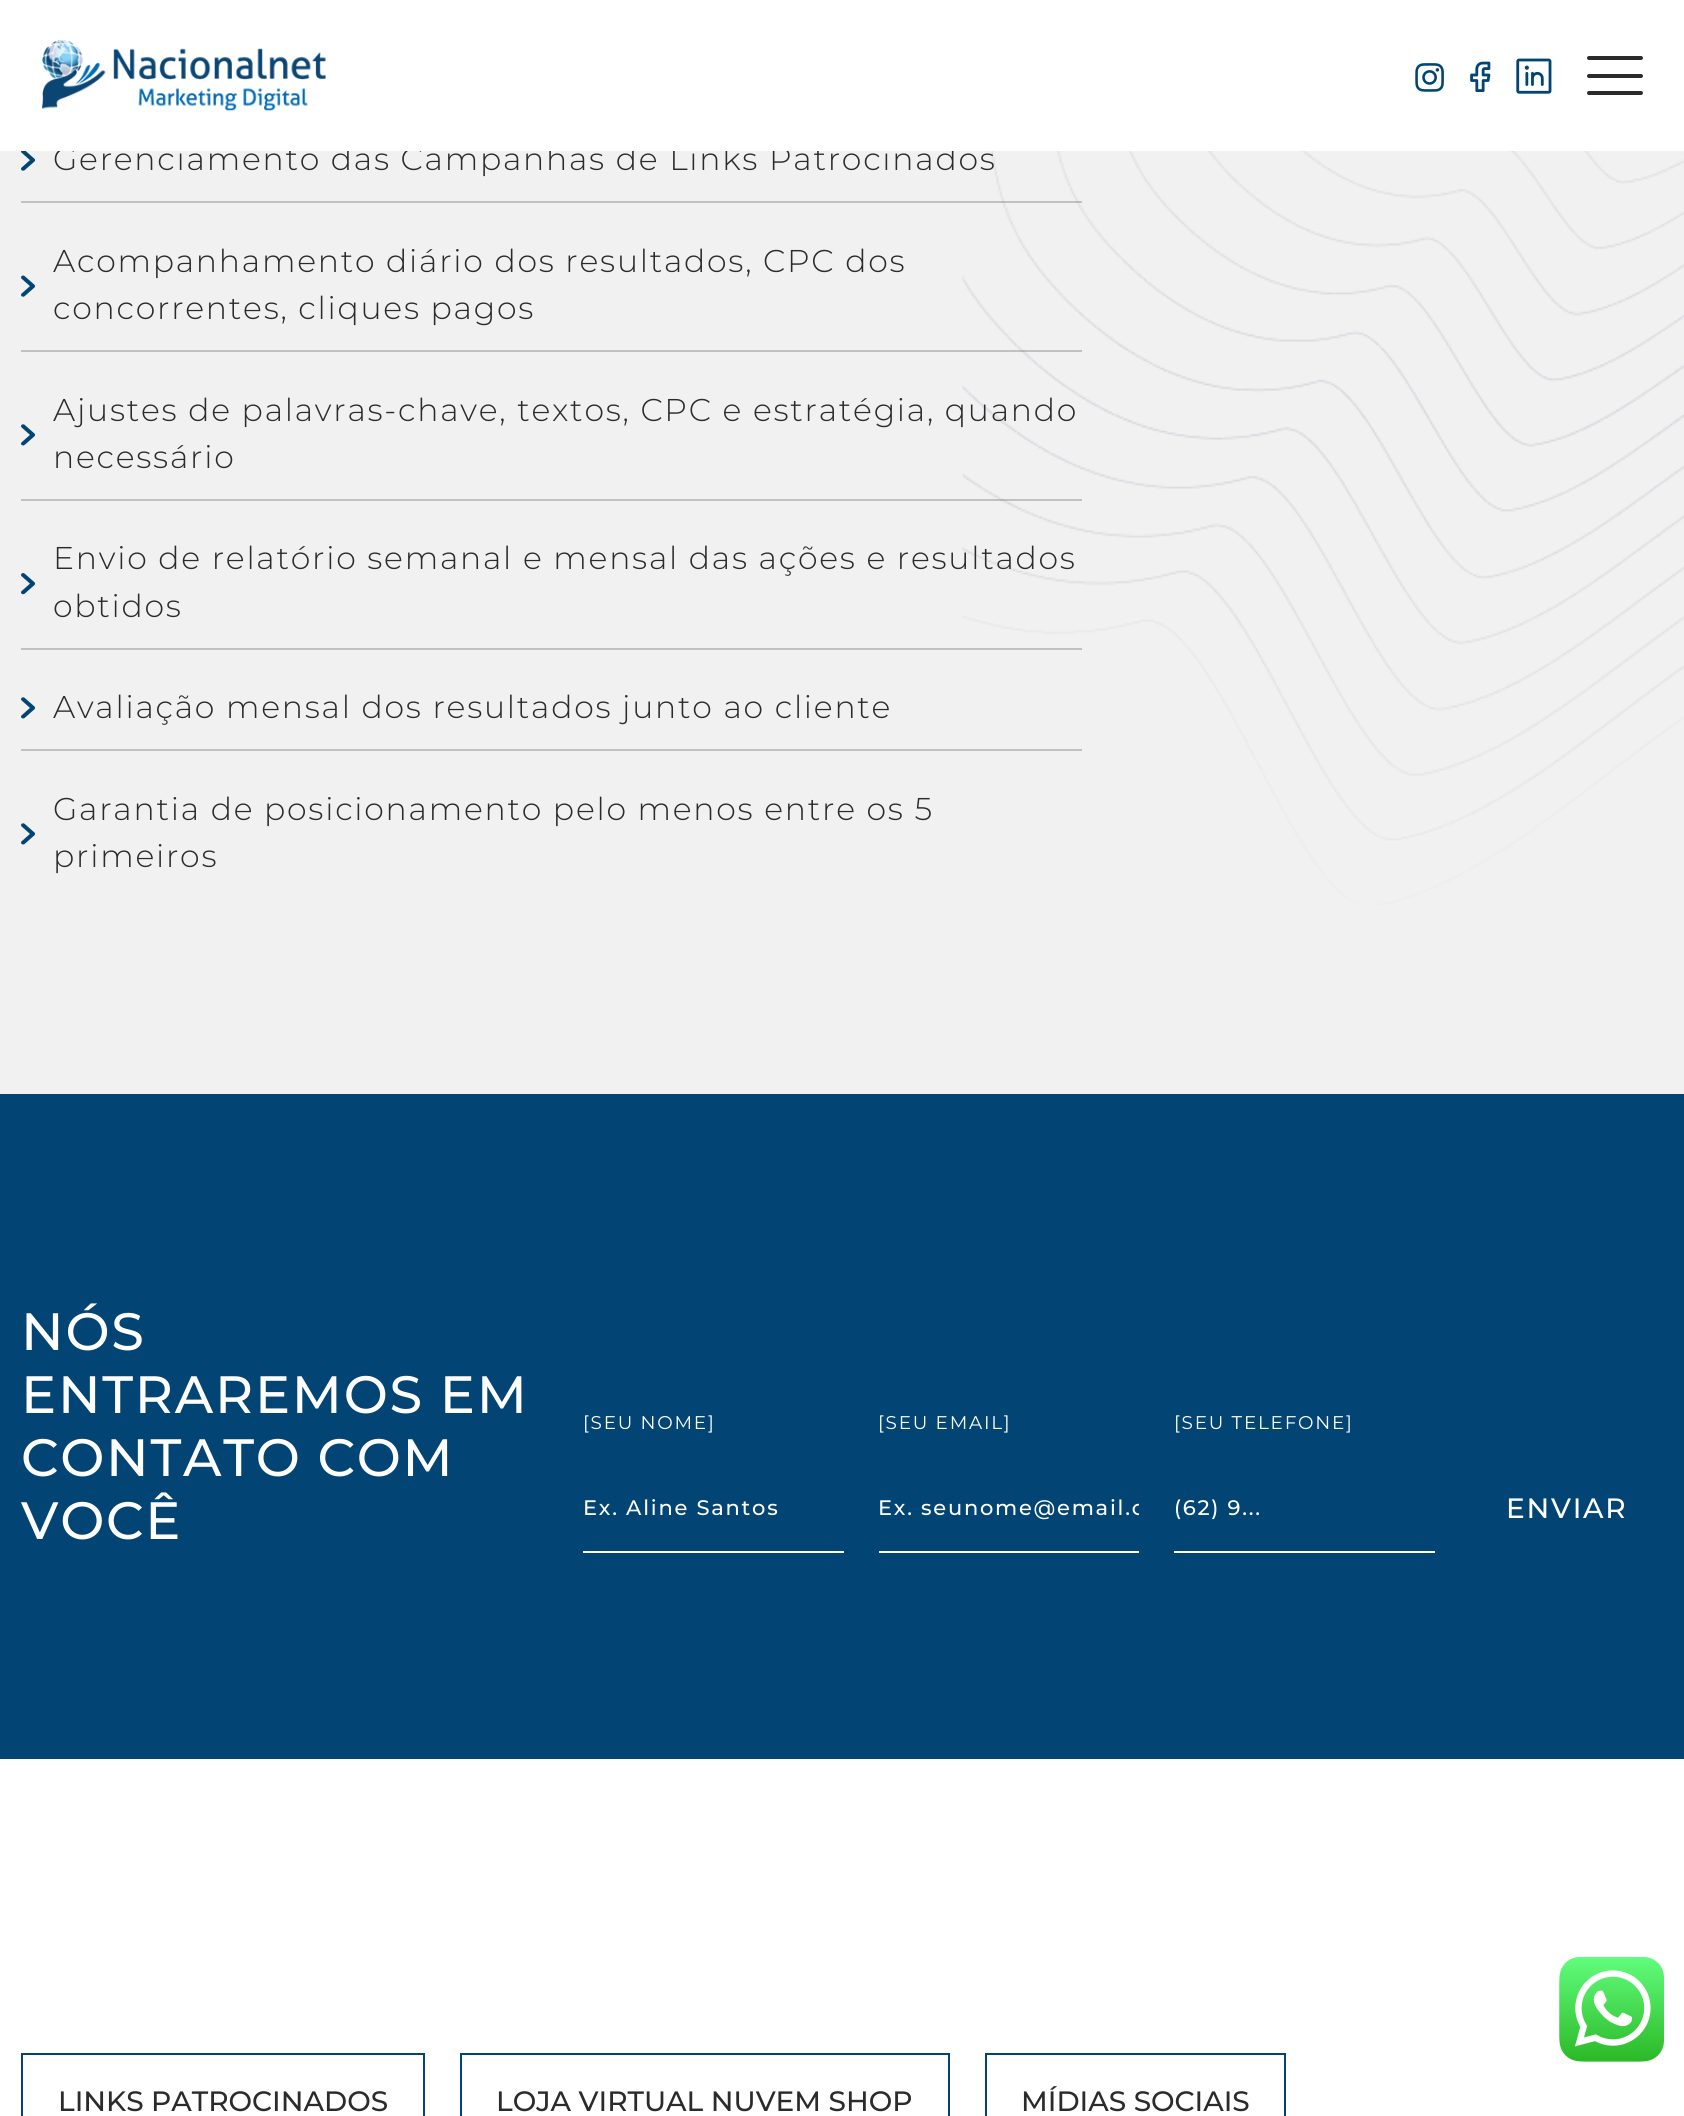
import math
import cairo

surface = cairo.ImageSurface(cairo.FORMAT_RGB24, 1684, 2116)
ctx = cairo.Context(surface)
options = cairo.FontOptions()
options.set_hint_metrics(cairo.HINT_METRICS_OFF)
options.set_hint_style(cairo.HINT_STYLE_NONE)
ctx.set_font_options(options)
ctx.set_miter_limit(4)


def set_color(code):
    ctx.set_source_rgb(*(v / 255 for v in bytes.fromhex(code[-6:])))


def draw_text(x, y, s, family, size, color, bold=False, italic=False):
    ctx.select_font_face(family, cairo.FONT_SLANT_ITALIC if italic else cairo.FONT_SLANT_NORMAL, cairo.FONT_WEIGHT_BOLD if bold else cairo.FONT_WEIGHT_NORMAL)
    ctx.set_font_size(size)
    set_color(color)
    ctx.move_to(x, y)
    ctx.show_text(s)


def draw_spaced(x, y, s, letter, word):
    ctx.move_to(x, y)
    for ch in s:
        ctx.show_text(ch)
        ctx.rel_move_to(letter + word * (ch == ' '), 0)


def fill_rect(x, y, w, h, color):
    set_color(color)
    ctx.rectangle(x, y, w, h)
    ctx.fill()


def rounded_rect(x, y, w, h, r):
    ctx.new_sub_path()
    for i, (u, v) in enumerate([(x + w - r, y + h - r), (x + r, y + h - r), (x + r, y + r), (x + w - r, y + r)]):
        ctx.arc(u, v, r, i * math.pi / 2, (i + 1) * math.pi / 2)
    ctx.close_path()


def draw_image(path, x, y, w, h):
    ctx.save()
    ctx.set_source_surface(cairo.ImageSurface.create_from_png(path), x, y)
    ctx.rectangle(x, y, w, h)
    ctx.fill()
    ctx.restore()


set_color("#ffffff")
ctx.paint()
fill_rect(0, 151, 1684, 943, "#f1f1f1")
ctx.select_font_face("Montserrat Light")
ctx.set_font_size(31.5)
set_color("#2b2b2b")
draw_spaced(53, 170, "Gerenciamento das Campanhas de Links Patrocinados", 1.75, 0)
fill_rect(58, 146, 896, 5, "#ffffff")
draw_image("assets/img1.png", 42, 40, 284, 71)
draw_image("assets/img2.png", 1415, 63, 29, 29)
draw_image("assets/img3.png", 1470, 61, 21, 31)
draw_image("assets/img4.png", 1516, 58, 36, 36)
set_color("#2b2b2b")
rounded_rect(1587, 56, 56, 4, 2)
ctx.fill()
rounded_rect(1587, 74, 56, 4, 2)
ctx.fill()
rounded_rect(1587, 91, 56, 4, 2)
ctx.fill()
fill_rect(21, 201, 1061, 2, "#c1c1c1")
draw_image("assets/img5.png", 21, 151, 14, 20)
fill_rect(21, 350, 1061, 2, "#c1c1c1")
draw_image("assets/img6.png", 21, 275, 14, 22)
set_color("#2b2b2b")
draw_spaced(53, 272, "Acompanhamento diário dos resultados, CPC dos", 1.75, 0)
draw_spaced(53, 319, "concorrentes, cliques pagos", 1.75, 0)
fill_rect(21, 499, 1061, 2, "#c1c1c1")
draw_image("assets/img7.png", 21, 424, 14, 22)
set_color("#2b2b2b")
draw_spaced(53, 421, "Ajustes de palavras-chave, textos, CPC e estratégia, quando", 1.75, 0)
draw_spaced(53, 468, "necessário", 1.75, 0)
fill_rect(21, 648, 1061, 2, "#c1c1c1")
draw_image("assets/img8.png", 21, 573, 14, 22)
set_color("#2b2b2b")
draw_spaced(53, 569, "Envio de relatório semanal e mensal das ações e resultados", 1.75, 0)
draw_spaced(53, 617, "obtidos", 1.75, 0)
fill_rect(21, 749, 1061, 2, "#c1c1c1")
draw_image("assets/img7.png", 21, 697, 14, 22)
set_color("#2b2b2b")
draw_spaced(53, 718, "Avaliação mensal dos resultados junto ao cliente", 1.75, 0)
draw_image("assets/img7.png", 21, 823, 14, 22)
draw_spaced(53, 820, "Garantia de posicionamento pelo menos entre os 5", 1.75, 0)
draw_spaced(53, 867, "primeiros", 1.75, 0)
draw_image("assets/img9.png", 962, 151, 722, 754)
fill_rect(0, 1094, 1684, 665, "#024474")
ctx.select_font_face("Montserrat Medium")
ctx.set_font_size(52.5)
set_color("#ffffff")
draw_spaced(21, 1350, "NÓS", 1.75, 0)
draw_spaced(21, 1413, "ENTRAREMOS EM", 1.75, 0)
draw_spaced(21, 1476, "CONTATO COM", 1.75, 0)
draw_spaced(21, 1539, "VOCÊ", 1.75, 0)
ctx.select_font_face("Montserrat")
ctx.set_font_size(18.4)
draw_spaced(583, 1429, "[SEU NOME]", 1.75, 0)
fill_rect(583, 1551, 261, 2, "#ffffff")
ctx.select_font_face("Montserrat Medium")
ctx.set_font_size(21)
draw_spaced(583, 1515, "Ex. Aline Santos", 1.75, 0)
ctx.select_font_face("Montserrat")
ctx.set_font_size(18.4)
draw_spaced(878, 1429, "[SEU EMAIL]", 1.75, 0)
fill_rect(879, 1551, 260, 2, "#ffffff")
ctx.save()
ctx.rectangle(879, 1495, 260, 26)
ctx.clip()
ctx.select_font_face("Montserrat Medium")
ctx.set_font_size(21)
draw_spaced(878, 1515, "Ex. seunome@email.c", 1.75, 0)
ctx.restore()
draw_spaced(1174, 1429, "[SEU TELEFONE]", 1.75, 0)
fill_rect(1174, 1551, 261, 2, "#ffffff")
ctx.select_font_face("Montserrat Medium")
ctx.set_font_size(21)
draw_spaced(1174, 1515, "(62) 9...", 1.75, 0)
ctx.set_font_size(28)
draw_spaced(1506, 1518, "ENVIAR", 1.75, 0)
draw_image("assets/img10.png", 1559, 1957, 105, 105)
ctx.rectangle(22, 2054, 402, 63)
set_color("#024474")
ctx.stroke()
draw_text(58, 2111, "LINKS PATROCINADOS", "Montserrat Medium", 28, "#2b2b2b")
ctx.rectangle(461, 2054, 488, 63)
set_color("#024474")
ctx.stroke()
draw_text(496, 2111, "LOJA VIRTUAL NUVEM SHOP", "Montserrat Medium", 28, "#2b2b2b")
ctx.rectangle(986, 2054, 299, 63)
set_color("#024474")
ctx.stroke()
draw_text(1021, 2111, "MÍDIAS SOCIAIS", "Montserrat Medium", 28, "#2b2b2b")
surface.write_to_png("output.png")
